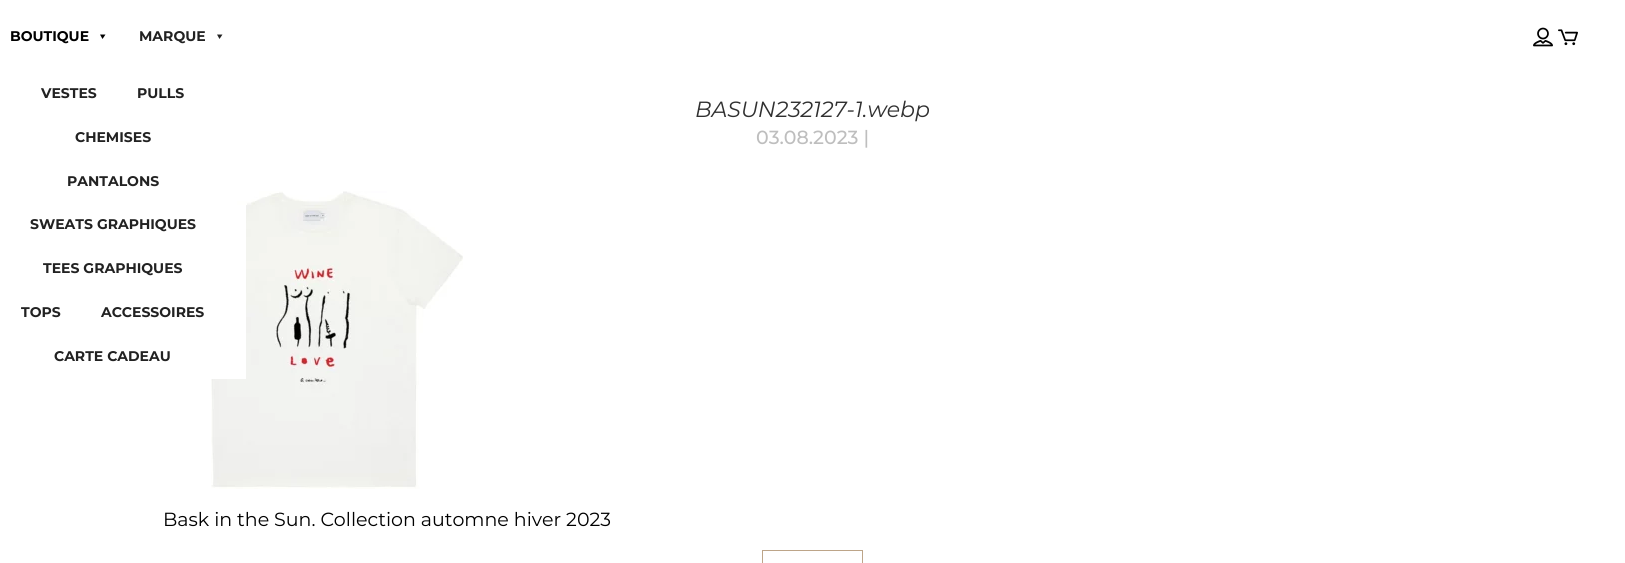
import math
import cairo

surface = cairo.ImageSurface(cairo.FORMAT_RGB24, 1625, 563)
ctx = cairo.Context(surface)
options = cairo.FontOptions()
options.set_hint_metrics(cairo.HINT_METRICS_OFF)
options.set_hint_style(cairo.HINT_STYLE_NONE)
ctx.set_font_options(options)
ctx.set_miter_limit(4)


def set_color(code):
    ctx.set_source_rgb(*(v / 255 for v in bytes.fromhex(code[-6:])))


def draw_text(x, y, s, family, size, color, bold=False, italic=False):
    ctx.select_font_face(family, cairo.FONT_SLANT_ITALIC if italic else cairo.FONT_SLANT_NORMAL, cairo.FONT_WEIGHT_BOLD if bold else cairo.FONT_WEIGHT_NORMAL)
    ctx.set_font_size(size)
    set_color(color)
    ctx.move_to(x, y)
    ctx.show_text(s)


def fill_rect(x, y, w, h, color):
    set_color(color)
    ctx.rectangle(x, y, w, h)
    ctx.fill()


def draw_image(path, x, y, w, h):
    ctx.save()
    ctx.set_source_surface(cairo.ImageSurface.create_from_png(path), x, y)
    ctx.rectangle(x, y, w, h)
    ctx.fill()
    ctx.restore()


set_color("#ffffff")
ctx.paint()
draw_text(10, 41, "BOUTIQUE", "Montserrat", 14, "#000000", bold=True)
ctx.new_path()
ctx.move_to(105.5, 34.5)
ctx.line_to(102.5, 39)
ctx.line_to(100, 34.5)
ctx.close_path()
ctx.fill()
draw_image("assets/img3.png", 163, 191, 300, 298)
fill_rect(163, 205, 83, 174, "#ffffff")
draw_text(41, 98, "VESTES", "Montserrat", 14, "#222222", bold=True)
draw_text(137, 98, "PULLS", "Montserrat", 14, "#222222", bold=True)
draw_text(75, 142, "CHEMISES", "Montserrat", 14, "#222222", bold=True)
draw_text(67, 186, "PANTALONS", "Montserrat", 14, "#222222", bold=True)
draw_text(30, 229, "SWEATS GRAPHIQUES", "Montserrat", 14, "#222222", bold=True)
draw_text(43, 273, "TEES GRAPHIQUES", "Montserrat", 14, "#222222", bold=True)
draw_text(21, 317, "TOPS", "Montserrat", 14, "#222222", bold=True)
draw_text(101, 317, "ACCESSOIRES", "Montserrat", 14, "#222222", bold=True)
draw_text(54, 361, "CARTE CADEAU", "Montserrat", 14, "#222222", bold=True)
draw_text(139, 41, "MARQUE", "Montserrat", 14, "#222222", bold=True)
ctx.new_path()
ctx.move_to(222.5, 34.5)
ctx.line_to(219.5, 39)
ctx.line_to(217, 34.5)
ctx.close_path()
ctx.fill()
draw_image("assets/img1.png", 1533, 27, 20, 20)
draw_image("assets/img2.png", 1558, 29, 20, 17)
draw_text(695, 117, "BASUN232127-1.webp", "Montserrat", 22, "#303030", italic=True)
draw_text(756, 144, "03.08.2023 |", "Montserrat Medium", 19, "#bebebe")
draw_text(163, 526, "Bask in the Sun. Collection automne hiver 2023", "Montserrat", 19, "#000000")
ctx.rectangle(762.5, 550.5, 100, 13)
set_color("#bda589")
ctx.set_line_width(1)
ctx.stroke()
surface.write_to_png("output.png")
